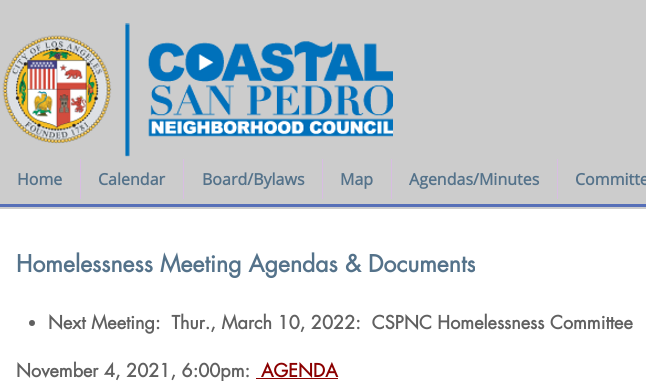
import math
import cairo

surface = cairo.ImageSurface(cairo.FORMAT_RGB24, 646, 381)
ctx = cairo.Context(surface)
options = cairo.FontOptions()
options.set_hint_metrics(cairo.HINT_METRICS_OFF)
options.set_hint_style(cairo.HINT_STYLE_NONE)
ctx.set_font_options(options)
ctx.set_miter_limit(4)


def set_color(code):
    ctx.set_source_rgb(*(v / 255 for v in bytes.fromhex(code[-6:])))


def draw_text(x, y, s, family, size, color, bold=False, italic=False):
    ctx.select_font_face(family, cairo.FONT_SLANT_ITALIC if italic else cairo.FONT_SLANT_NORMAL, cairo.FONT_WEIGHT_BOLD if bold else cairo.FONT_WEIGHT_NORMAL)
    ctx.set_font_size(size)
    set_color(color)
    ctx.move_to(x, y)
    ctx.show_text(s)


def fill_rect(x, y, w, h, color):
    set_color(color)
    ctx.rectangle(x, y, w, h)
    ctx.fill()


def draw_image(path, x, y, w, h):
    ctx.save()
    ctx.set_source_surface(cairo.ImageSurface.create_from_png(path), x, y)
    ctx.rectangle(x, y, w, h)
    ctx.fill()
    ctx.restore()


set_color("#ffffff")
ctx.paint()
fill_rect(0, 0, 646, 209, "#cccccc")
draw_image("assets/img1.png", 2, 23, 391, 134)
draw_text(17, 185, "Home", "Open Sans", 16, "#54728a", bold=True)
fill_rect(80, 159, 1, 40, "#d8bde2")
draw_text(98, 185, "Calendar", "Open Sans", 16, "#54728a", bold=True)
fill_rect(183, 159, 1, 40, "#d8bde2")
draw_text(202, 185, "Board/Bylaws", "Open Sans", 16, "#54728a", bold=True)
fill_rect(322, 159, 1, 40, "#d8bde2")
draw_text(340, 185, "Map", "Open Sans", 16, "#54728a", bold=True)
fill_rect(391, 159, 1, 40, "#d8bde2")
draw_text(409, 185, "Agendas/Minutes", "Open Sans", 16, "#54728a", bold=True)
fill_rect(557, 159, 1, 40, "#d8bde2")
draw_text(575, 185, "Committe", "Open Sans", 16, "#54728a", bold=True)
fill_rect(0, 204, 646, 3, "#566fb8")
draw_text(16, 272, "Homelessness Meeting Agendas & Documents", "futura", 23, "#54728a", bold=True)
set_color("#606060")
ctx.new_path()
ctx.arc(32, 323, 3, 0, 2 * math.pi)
ctx.fill()
draw_text(48, 329, "Next Meeting:  Thur., March 10, 2022:  CSPNC Homelessness Committee", "futura", 18, "#606060", bold=True)
draw_text(16, 377, "November 4, 2021, 6:00pm:", "futura", 18, "#606060", bold=True)
draw_text(261, 377, "AGENDA", "futura", 18, "#8b0000", bold=True)
fill_rect(256, 378, 82, 1, "#8b0000")
surface.write_to_png("output.png")
